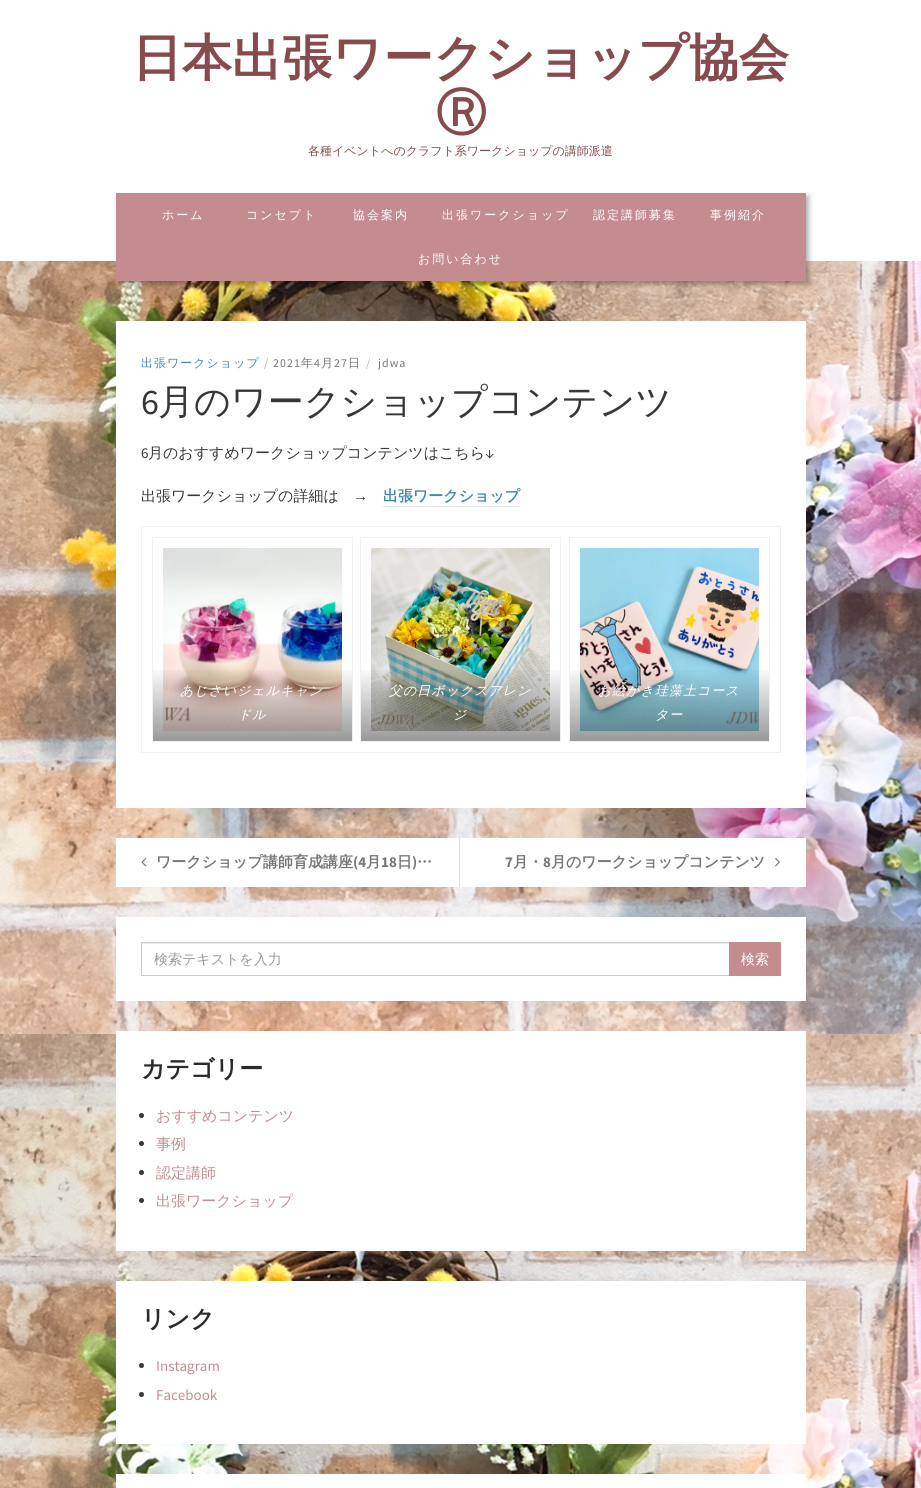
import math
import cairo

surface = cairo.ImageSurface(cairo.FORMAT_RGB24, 921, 1488)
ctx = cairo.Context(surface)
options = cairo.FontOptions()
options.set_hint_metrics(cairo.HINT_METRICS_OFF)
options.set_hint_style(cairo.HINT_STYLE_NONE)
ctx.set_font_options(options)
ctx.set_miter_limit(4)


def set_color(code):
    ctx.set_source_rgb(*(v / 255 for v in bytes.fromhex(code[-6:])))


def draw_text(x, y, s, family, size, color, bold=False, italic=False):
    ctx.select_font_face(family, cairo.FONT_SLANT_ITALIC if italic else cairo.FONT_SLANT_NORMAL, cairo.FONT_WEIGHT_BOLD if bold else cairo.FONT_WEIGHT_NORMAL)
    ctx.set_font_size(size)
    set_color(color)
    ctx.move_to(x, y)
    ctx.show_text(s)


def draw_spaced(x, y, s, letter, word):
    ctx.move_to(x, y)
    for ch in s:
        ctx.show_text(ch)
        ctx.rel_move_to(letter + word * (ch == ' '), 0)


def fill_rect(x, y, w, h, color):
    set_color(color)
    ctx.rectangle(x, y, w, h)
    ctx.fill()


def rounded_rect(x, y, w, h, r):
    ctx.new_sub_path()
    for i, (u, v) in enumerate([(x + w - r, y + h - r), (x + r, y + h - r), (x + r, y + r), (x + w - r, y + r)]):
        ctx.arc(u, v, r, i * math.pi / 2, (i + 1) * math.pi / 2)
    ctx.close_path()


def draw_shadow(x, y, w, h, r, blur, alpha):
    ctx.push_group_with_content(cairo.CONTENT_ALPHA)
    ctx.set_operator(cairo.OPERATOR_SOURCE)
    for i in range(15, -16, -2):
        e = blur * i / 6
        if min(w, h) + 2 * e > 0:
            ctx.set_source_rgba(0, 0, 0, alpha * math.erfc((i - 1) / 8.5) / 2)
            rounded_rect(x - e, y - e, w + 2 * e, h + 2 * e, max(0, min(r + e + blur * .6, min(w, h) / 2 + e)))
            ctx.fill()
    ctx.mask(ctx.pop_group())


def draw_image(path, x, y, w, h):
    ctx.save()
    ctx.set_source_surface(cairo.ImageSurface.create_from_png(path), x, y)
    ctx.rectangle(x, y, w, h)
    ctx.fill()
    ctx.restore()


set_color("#ffffff")
ctx.paint()
draw_image("assets/img1.png", 0, 261, 921, 1227)
draw_text(132, 75, "日本出張ワークショップ協会", "WenQuanYi Zen Hei", 50, "#874b4d", bold=True)
draw_text(436, 130, "Ⓡ", "WenQuanYi Zen Hei", 50, "#874b4d", bold=True)
draw_text(308, 155, "各種イベントへのクラフト系ワークショップの講師派遣", "WenQuanYi Zen Hei Medium", 12, "#874b4d")
set_color("#000000")
draw_shadow(119, 196, 690, 88, 0, 2.5, 0.3)
fill_rect(116, 193, 690, 88, "#c58c90")
set_color("#ffffff")
draw_spaced(162, 219, "ホーム", 2, 0)
draw_spaced(246, 219, "コンセプト", 2, 0)
draw_spaced(353, 219, "協会案内", 2, 0)
draw_spaced(442, 219, "出張ワークショップ", 2, 0)
draw_spaced(593, 219, "認定講師募集", 2, 0)
draw_spaced(710, 219, "事例紹介", 2, 0)
draw_spaced(418, 263, "お問い合わせ", 2, 0)
fill_rect(116, 321, 690, 487, "#ffffff")
set_color("#4289b6")
draw_spaced(141, 367, "出張ワークショップ", 1, 0)
draw_text(264, 367, "/", "Source Sans Pro", 12, "#b1b1b1")
set_color("#777777")
draw_spaced(273, 367, "2021", 1, 0)
ctx.select_font_face("WenQuanYi Zen Hei Medium")
draw_spaced(301, 367, "年", 1, 0)
ctx.select_font_face("Source Sans Pro")
draw_spaced(314, 367, "4", 1, 0)
ctx.select_font_face("WenQuanYi Zen Hei Medium")
draw_spaced(321, 367, "月", 1, 0)
ctx.select_font_face("Source Sans Pro")
draw_spaced(334, 367, "27", 1, 0)
ctx.select_font_face("WenQuanYi Zen Hei Medium")
draw_spaced(348, 367, "日", 1, 0)
draw_text(366, 367, "/", "Source Sans Pro", 12, "#b1b1b1")
set_color("#777777")
draw_spaced(378, 367, "jdwa", 1, 0)
draw_text(141, 414, "6", "Source Sans Pro", 36, "#373737")
draw_text(158, 414, "月のワークショップコンテンツ", "WenQuanYi Zen Hei Medium", 36, "#373737")
draw_text(141, 458, "6", "Source Sans Pro", 15, "#373737")
draw_text(148, 458, "月のおすすめワークショップコンテンツはこちら", "WenQuanYi Zen Hei Medium", 15, "#373737")
draw_text(485, 458, "↓", "Source Sans Pro", 15, "#373737")
draw_text(141, 501, "出張ワークショップの詳細は", "WenQuanYi Zen Hei Medium", 15, "#373737")
draw_text(353, 501, "→", "Liberation Sans", 15, "#373737")
draw_text(383, 501, "出張ワークショップ", "WenQuanYi Zen Hei", 15, "#4289b6", bold=True)
fill_rect(383, 506, 137, 1, "#e3e4e4")
ctx.rectangle(141.5, 526.5, 639, 226)
set_color("#f1f1f1")
ctx.set_line_width(1)
ctx.stroke()
ctx.rectangle(152.5, 537.5, 200, 204)
ctx.stroke()
draw_image("assets/img2.png", 163, 548, 179, 183)
gradient = cairo.LinearGradient(253, 741, 253, 666)
gradient.add_color_stop_rgba(0, 0, 0, 0, 0.4)
gradient.add_color_stop_rgba(1, 0, 0, 0, 0)
ctx.set_source(gradient)
ctx.rectangle(153, 670, 199, 71)
ctx.fill()
ctx.select_font_face("WenQuanYi Zen Hei Medium", cairo.FONT_SLANT_ITALIC)
ctx.set_font_size(13)
set_color("#ffffff")
draw_spaced(180, 695, "あじさいジェルキャン", 1, 0)
draw_spaced(238, 719, "ドル", 1, 0)
ctx.rectangle(360.5, 537.5, 200, 204)
set_color("#f1f1f1")
ctx.stroke()
draw_image("assets/img3.png", 371, 548, 179, 183)
gradient = cairo.LinearGradient(461, 741, 461, 666)
gradient.add_color_stop_rgba(0, 0, 0, 0, 0.4)
gradient.add_color_stop_rgba(1, 0, 0, 0, 0)
ctx.set_source(gradient)
ctx.rectangle(361, 670, 199, 71)
ctx.fill()
set_color("#ffffff")
draw_spaced(389, 695, "父の日ボックスアレン", 1, 0)
draw_spaced(453, 719, "ジ", 1, 0)
ctx.rectangle(569.5, 537.5, 200, 204)
set_color("#f1f1f1")
ctx.stroke()
draw_image("assets/img4.png", 580, 548, 179, 183)
gradient = cairo.LinearGradient(670, 741, 670, 666)
gradient.add_color_stop_rgba(0, 0, 0, 0, 0.4)
gradient.add_color_stop_rgba(1, 0, 0, 0, 0)
ctx.set_source(gradient)
ctx.rectangle(570, 670, 199, 71)
ctx.fill()
set_color("#ffffff")
draw_spaced(598, 695, "お絵かき珪藻土コース", 1, 0)
draw_spaced(655, 719, "ター", 1, 0)
fill_rect(116, 838, 690, 49, "#ffffff")
fill_rect(459, 838, 1, 49, "#dddddd")
draw_image("assets/img5.png", 141, 858, 6, 9)
draw_text(156, 867, "ワークショップ講師育成講座", "WenQuanYi Zen Hei", 15, "#777777", bold=True)
draw_text(353, 867, "(4", "Source Sans Pro", 15, "#777777", bold=True)
draw_text(366, 867, "月", "WenQuanYi Zen Hei", 15, "#777777", bold=True)
draw_text(381, 867, "18", "Source Sans Pro", 15, "#777777", bold=True)
draw_text(397, 867, "日", "WenQuanYi Zen Hei", 15, "#777777", bold=True)
draw_text(412, 867, ")", "Source Sans Pro", 15, "#777777", bold=True)
draw_text(417, 867, "…", "WenQuanYi Zen Hei", 15, "#777777", bold=True)
draw_text(505, 867, "7", "Source Sans Pro", 15, "#777777", bold=True)
draw_text(513, 867, "月・", "WenQuanYi Zen Hei", 15, "#777777", bold=True)
draw_text(543, 867, "8", "Source Sans Pro", 15, "#777777", bold=True)
draw_text(551, 867, "月のワークショップコンテンツ", "WenQuanYi Zen Hei", 15, "#777777", bold=True)
draw_image("assets/img6.png", 775, 858, 5, 9)
fill_rect(116, 917, 690, 84, "#ffffff")
fill_rect(142, 943, 587, 1, "#ececec")
ctx.rectangle(141.5, 942.5, 639, 33)
set_color("#cccccc")
ctx.stroke()
draw_text(154, 964, "検索テキストを入力", "WenQuanYi Zen Hei Medium", 14, "#999999")
fill_rect(729, 942, 52, 34, "#c58c90")
draw_text(741, 964, "検索", "WenQuanYi Zen Hei Medium", 14, "#ffffff")
fill_rect(116, 1031, 690, 220, "#ffffff")
draw_text(141, 1077, "カテゴリー", "WenQuanYi Zen Hei", 24, "#2a2a2a", bold=True)
set_color("#373737")
ctx.new_path()
ctx.arc(141.5, 1115.5, 2.5, 0, 2 * math.pi)
ctx.fill()
draw_text(156, 1121, "おすすめコンテンツ", "WenQuanYi Zen Hei Medium", 15, "#c58c90")
set_color("#373737")
ctx.new_path()
ctx.arc(141.5, 1143.5, 2.5, 0, 2 * math.pi)
ctx.fill()
draw_text(156, 1149, "事例", "WenQuanYi Zen Hei Medium", 15, "#c58c90")
set_color("#373737")
ctx.new_path()
ctx.arc(141.5, 1172.5, 2.5, 0, 2 * math.pi)
ctx.fill()
draw_text(156, 1178, "認定講師", "WenQuanYi Zen Hei Medium", 15, "#c58c90")
set_color("#373737")
ctx.new_path()
ctx.arc(141.5, 1200.5, 2.5, 0, 2 * math.pi)
ctx.fill()
draw_text(156, 1206, "出張ワークショップ", "WenQuanYi Zen Hei Medium", 15, "#c58c90")
fill_rect(116, 1281, 690, 163, "#ffffff")
draw_text(141, 1327, "リンク", "WenQuanYi Zen Hei", 24, "#2a2a2a", bold=True)
set_color("#373737")
ctx.new_path()
ctx.arc(141.5, 1365.5, 2.5, 0, 2 * math.pi)
ctx.fill()
draw_text(156, 1371, "Instagram", "Source Sans Pro", 15, "#c58c90")
set_color("#373737")
ctx.new_path()
ctx.arc(141.5, 1394.5, 2.5, 0, 2 * math.pi)
ctx.fill()
draw_text(156, 1400, "Facebook", "Source Sans Pro", 15, "#c58c90")
fill_rect(116, 1474, 690, 14, "#ffffff")
surface.write_to_png("output.png")
